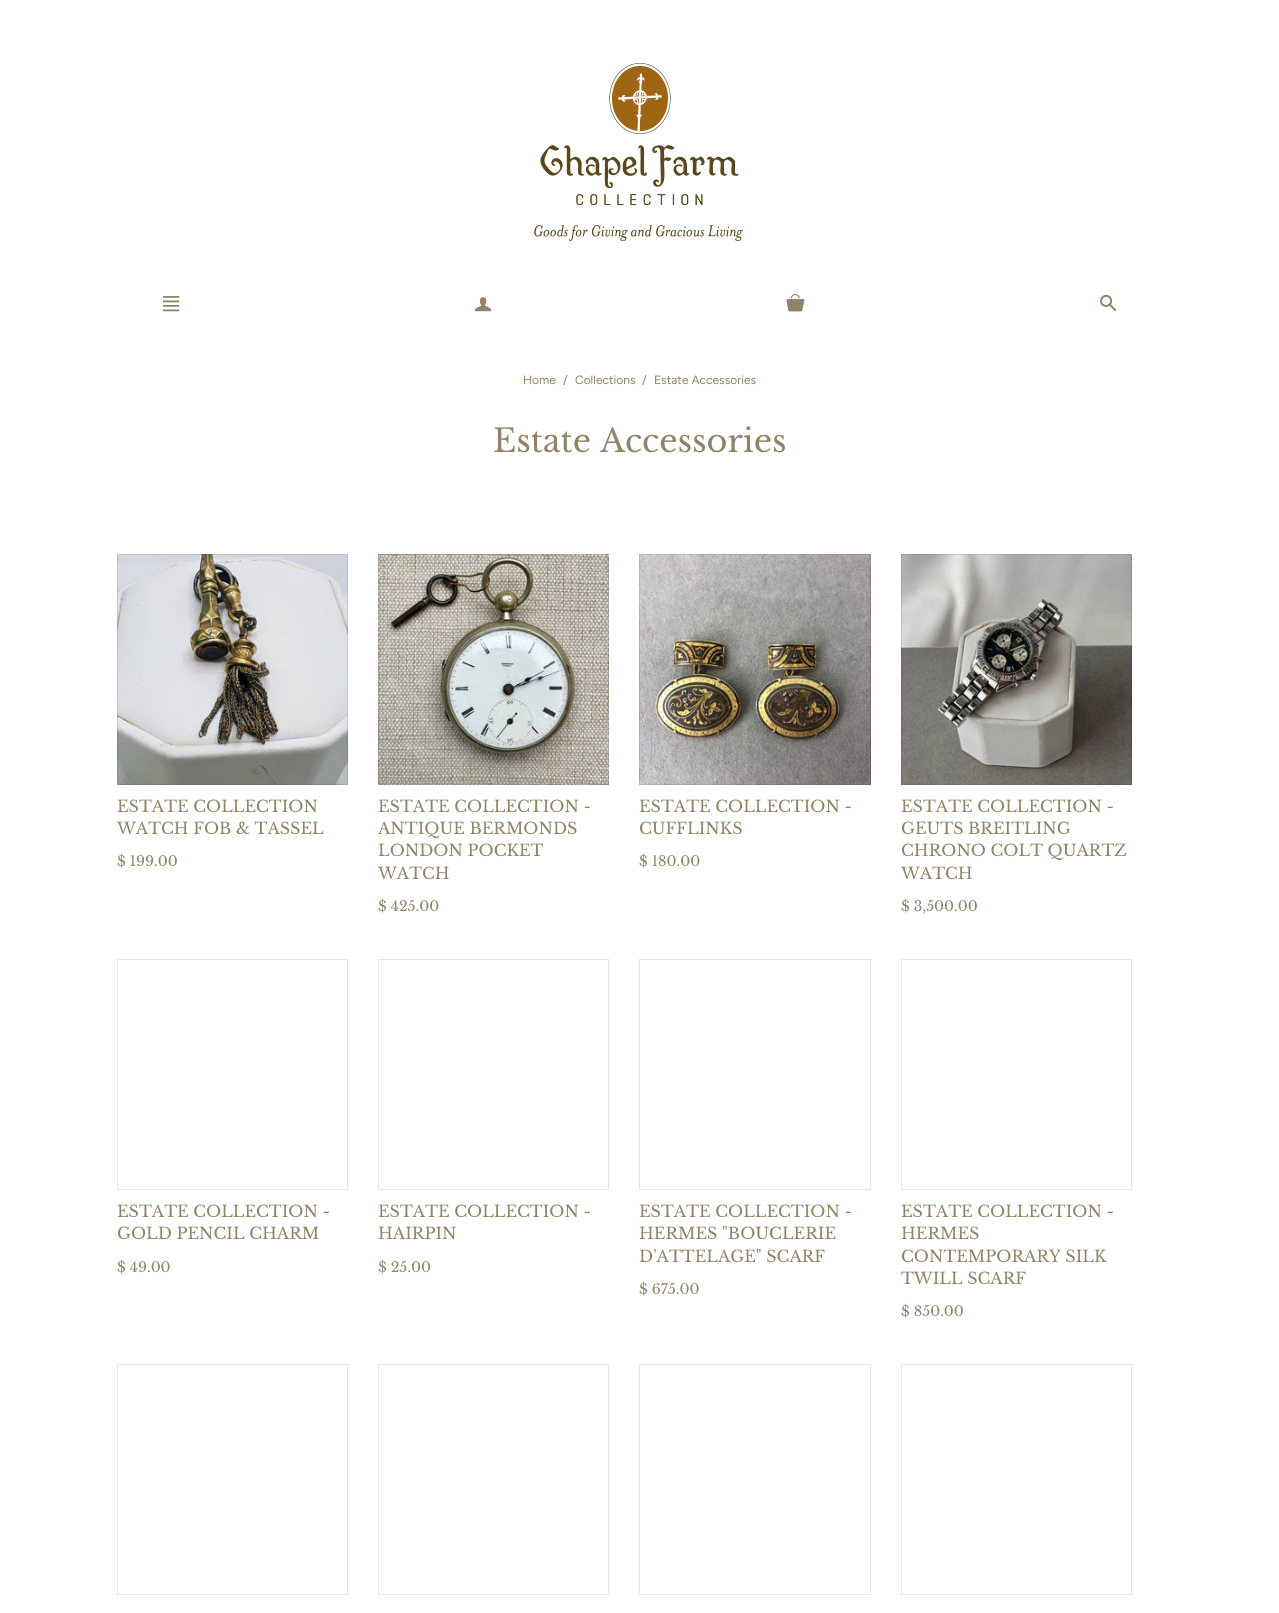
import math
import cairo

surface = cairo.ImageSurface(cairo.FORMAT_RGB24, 1279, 1613)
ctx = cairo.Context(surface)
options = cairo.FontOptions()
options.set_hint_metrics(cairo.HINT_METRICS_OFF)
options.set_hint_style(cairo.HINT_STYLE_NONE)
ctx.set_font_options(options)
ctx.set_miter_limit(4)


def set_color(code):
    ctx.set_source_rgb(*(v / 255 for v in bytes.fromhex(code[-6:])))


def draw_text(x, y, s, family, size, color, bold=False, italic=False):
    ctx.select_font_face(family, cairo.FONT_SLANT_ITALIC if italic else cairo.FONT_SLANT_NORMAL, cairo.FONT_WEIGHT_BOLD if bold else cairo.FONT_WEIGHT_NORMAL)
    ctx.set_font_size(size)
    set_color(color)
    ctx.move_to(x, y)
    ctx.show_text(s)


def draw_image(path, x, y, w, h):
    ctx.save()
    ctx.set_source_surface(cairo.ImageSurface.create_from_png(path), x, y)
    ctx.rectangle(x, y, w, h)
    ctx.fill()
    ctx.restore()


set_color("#ffffff")
ctx.paint()
draw_image("assets/img1.png", 534, 63, 209, 178)
draw_image("assets/img2.png", 163, 296, 17, 16)
draw_image("assets/img3.png", 475, 297, 17, 15)
draw_image("assets/img4.png", 786, 294, 19, 18)
draw_image("assets/img5.png", 1100, 294, 17, 17)
draw_text(523, 384, "Home", "Figtree", 12, "#908468")
draw_text(563, 384, "/", "Figtree", 12, "#908468")
draw_text(575, 384, "Collections", "Figtree", 12, "#908468")
draw_text(642, 384, "/", "Figtree", 12, "#908468")
draw_text(654, 384, "Estate Accessories", "Figtree", 12, "#908468")
draw_text(493, 452, "Estate Accessories", "Libre Baskerville", 32, "#908468")
draw_image("assets/img6.png", 117, 554, 231, 231)
ctx.rectangle(117.5, 554.5, 230, 230)
ctx.set_source_rgba(0, 0, 0, 0.1)
ctx.set_line_width(1)
ctx.stroke()
draw_text(117, 812, "ESTATE COLLECTION", "Libre Baskerville", 16, "#908468")
draw_text(117, 834, "WATCH FOB & TASSEL", "Libre Baskerville", 16, "#908468")
draw_text(117, 866, "$ 199.00", "Libre Baskerville", 14, "#908468")
draw_image("assets/img7.png", 378, 554, 231, 231)
ctx.rectangle(378.5, 554.5, 230, 230)
ctx.set_source_rgba(0, 0, 0, 0.1)
ctx.stroke()
draw_text(378, 812, "ESTATE COLLECTION -", "Libre Baskerville", 16, "#908468")
draw_text(378, 834, "ANTIQUE BERMONDS", "Libre Baskerville", 16, "#908468")
draw_text(378, 856, "LONDON POCKET", "Libre Baskerville", 16, "#908468")
draw_text(378, 879, "WATCH", "Libre Baskerville", 16, "#908468")
draw_text(378, 911, "$ 425.00", "Libre Baskerville", 14, "#908468")
draw_image("assets/img8.png", 639, 554, 232, 231)
ctx.rectangle(639.5, 554.5, 231, 230)
ctx.set_source_rgba(0, 0, 0, 0.1)
ctx.stroke()
draw_text(639, 812, "ESTATE COLLECTION -", "Libre Baskerville", 16, "#908468")
draw_text(639, 834, "CUFFLINKS", "Libre Baskerville", 16, "#908468")
draw_text(639, 866, "$ 180.00", "Libre Baskerville", 14, "#908468")
draw_image("assets/img9.png", 901, 554, 231, 231)
ctx.rectangle(901.5, 554.5, 230, 230)
ctx.set_source_rgba(0, 0, 0, 0.1)
ctx.stroke()
draw_text(901, 812, "ESTATE COLLECTION -", "Libre Baskerville", 16, "#908468")
draw_text(901, 834, "GEUTS BREITLING", "Libre Baskerville", 16, "#908468")
draw_text(901, 856, "CHRONO COLT QUARTZ", "Libre Baskerville", 16, "#908468")
draw_text(901, 879, "WATCH", "Libre Baskerville", 16, "#908468")
draw_text(901, 911, "$ 3,500.00", "Libre Baskerville", 14, "#908468")
ctx.rectangle(117.5, 959.5, 230, 230)
set_color("#e6e6e6")
ctx.stroke()
draw_text(117, 1217, "ESTATE COLLECTION -", "Libre Baskerville", 16, "#908468")
draw_text(117, 1239, "GOLD PENCIL CHARM", "Libre Baskerville", 16, "#908468")
draw_text(117, 1272, "$ 49.00", "Libre Baskerville", 14, "#908468")
ctx.rectangle(378.5, 959.5, 230, 230)
set_color("#e6e6e6")
ctx.stroke()
draw_text(378, 1217, "ESTATE COLLECTION -", "Libre Baskerville", 16, "#908468")
draw_text(378, 1239, "HAIRPIN", "Libre Baskerville", 16, "#908468")
draw_text(378, 1272, "$ 25.00", "Libre Baskerville", 14, "#908468")
ctx.rectangle(639.5, 959.5, 231, 230)
set_color("#e6e6e6")
ctx.stroke()
draw_text(639, 1217, "ESTATE COLLECTION -", "Libre Baskerville", 16, "#908468")
draw_text(639, 1239, "HERMES \"BOUCLERIE", "Libre Baskerville", 16, "#908468")
draw_text(639, 1262, "D'ATTELAGE\" SCARF", "Libre Baskerville", 16, "#908468")
draw_text(639, 1294, "$ 675.00", "Libre Baskerville", 14, "#908468")
ctx.rectangle(901.5, 959.5, 230, 230)
set_color("#e6e6e6")
ctx.stroke()
draw_text(901, 1217, "ESTATE COLLECTION -", "Libre Baskerville", 16, "#908468")
draw_text(901, 1239, "HERMES", "Libre Baskerville", 16, "#908468")
draw_text(901, 1262, "CONTEMPORARY SILK", "Libre Baskerville", 16, "#908468")
draw_text(901, 1284, "TWILL SCARF", "Libre Baskerville", 16, "#908468")
draw_text(901, 1316, "$ 850.00", "Libre Baskerville", 14, "#908468")
ctx.rectangle(117.5, 1364.5, 230, 230)
set_color("#e6e6e6")
ctx.stroke()
ctx.rectangle(378.5, 1364.5, 230, 230)
ctx.stroke()
ctx.rectangle(639.5, 1364.5, 231, 230)
ctx.stroke()
ctx.rectangle(901.5, 1364.5, 230, 230)
ctx.stroke()
surface.write_to_png("output.png")
